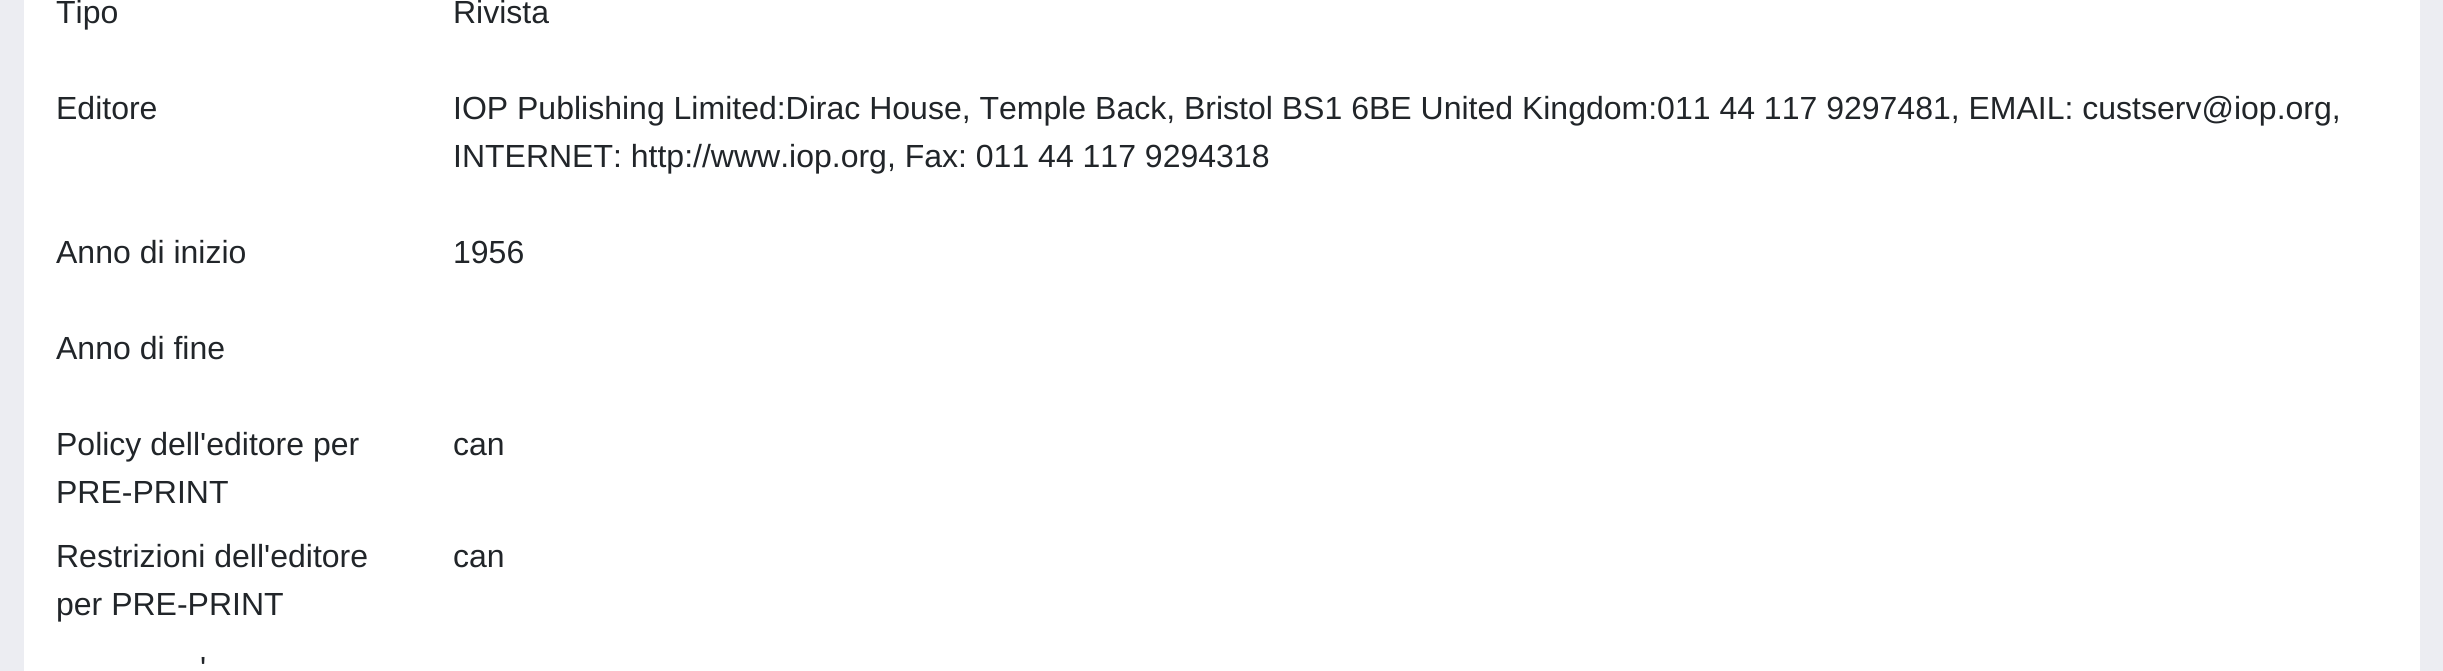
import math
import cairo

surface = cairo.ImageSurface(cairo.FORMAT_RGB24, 2443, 671)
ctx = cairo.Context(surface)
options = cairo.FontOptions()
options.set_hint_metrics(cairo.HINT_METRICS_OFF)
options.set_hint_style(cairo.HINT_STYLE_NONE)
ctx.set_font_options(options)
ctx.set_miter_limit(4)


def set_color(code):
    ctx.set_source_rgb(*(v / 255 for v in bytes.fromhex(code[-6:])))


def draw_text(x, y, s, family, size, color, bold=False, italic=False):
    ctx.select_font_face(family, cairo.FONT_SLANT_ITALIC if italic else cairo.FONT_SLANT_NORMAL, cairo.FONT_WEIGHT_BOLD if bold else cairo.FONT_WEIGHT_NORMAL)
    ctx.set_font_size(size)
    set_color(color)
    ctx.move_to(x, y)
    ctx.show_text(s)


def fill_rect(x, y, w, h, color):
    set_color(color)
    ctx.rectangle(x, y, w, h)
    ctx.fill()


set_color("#ecedf2")
ctx.paint()
fill_rect(24, 0, 2396, 671, "#ffffff")
draw_text(56, 23, "Tipo", "Liberation Sans", 32, "#212529")
draw_text(453, 23, "Rivista", "Liberation Sans", 32, "#212529")
draw_text(56, 119, "Editore", "Liberation Sans", 32, "#212529")
draw_text(453, 119, "IOP Publishing Limited:Dirac House, Temple Back, Bristol BS1 6BE United Kingdom:011 44 117 9297481, EMAIL: custserv@iop.org,", "Liberation Sans", 32, "#212529")
draw_text(453, 167, "INTERNET: http://www.iop.org, Fax: 011 44 117 9294318", "Liberation Sans", 32, "#212529")
draw_text(56, 263, "Anno di inizio", "Liberation Sans", 32, "#212529")
draw_text(453, 263, "1956", "Liberation Sans", 32, "#212529")
draw_text(56, 359, "Anno di fine", "Liberation Sans", 32, "#212529")
draw_text(56, 455, "Policy dell'editore per", "Liberation Sans", 32, "#212529")
draw_text(56, 503, "PRE-PRINT", "Liberation Sans", 32, "#212529")
draw_text(453, 455, "can", "Liberation Sans", 32, "#212529")
draw_text(56, 567, "Restrizioni dell'editore", "Liberation Sans", 32, "#212529")
draw_text(56, 615, "per PRE-PRINT", "Liberation Sans", 32, "#212529")
draw_text(453, 567, "can", "Liberation Sans", 32, "#212529")
draw_text(200, 679, "'", "Liberation Sans", 32, "#212529")
surface.write_to_png("output.png")
